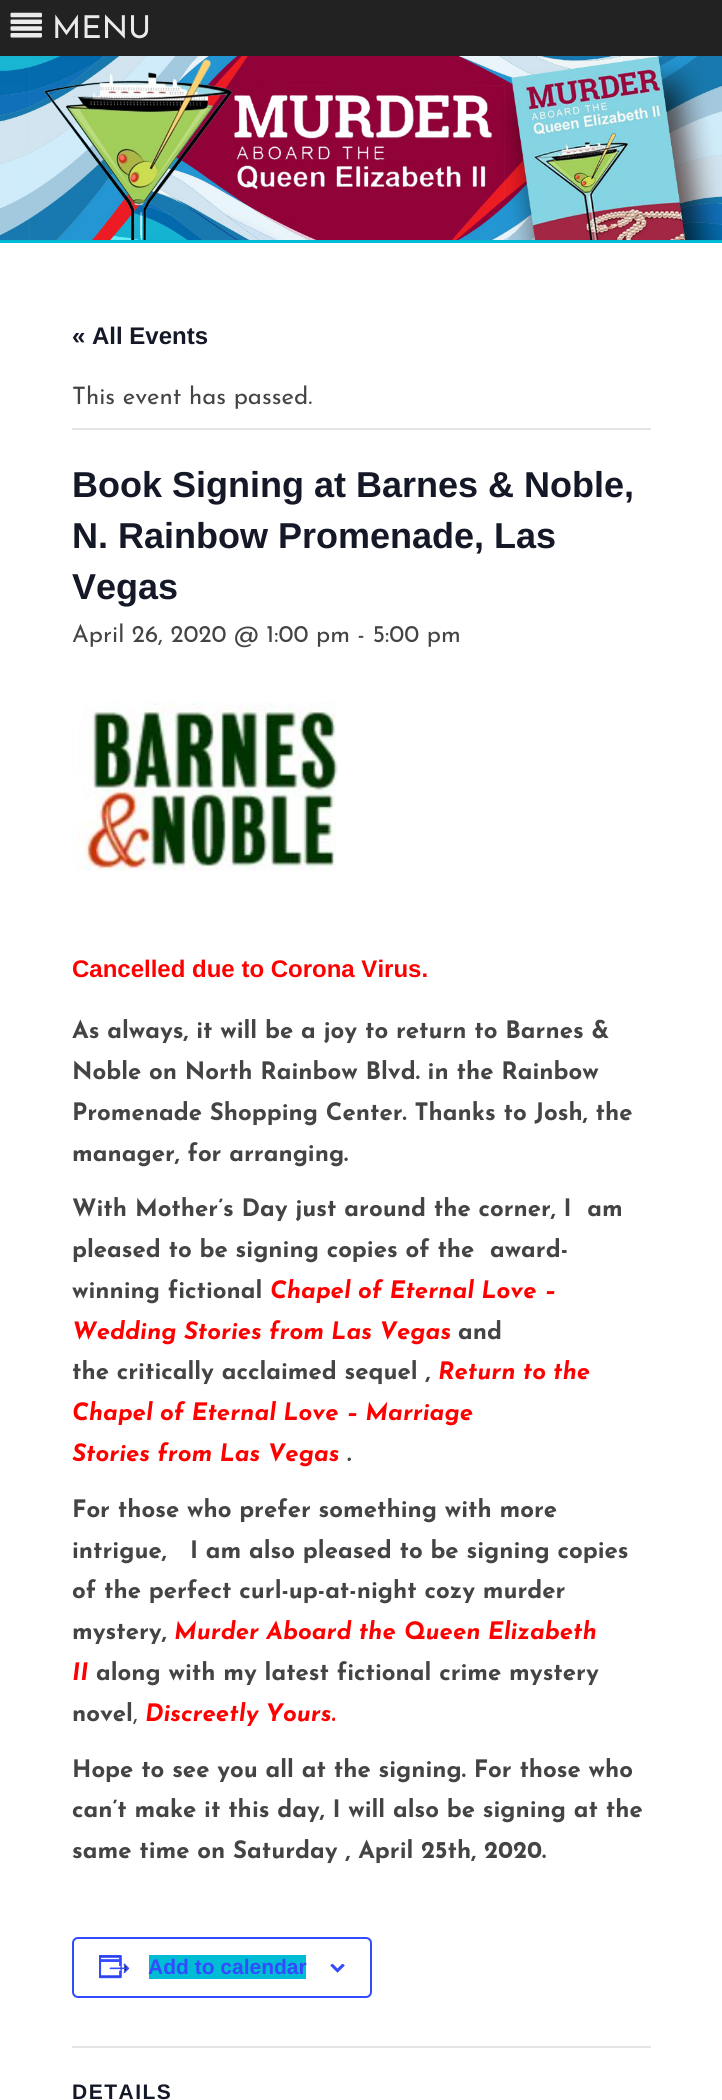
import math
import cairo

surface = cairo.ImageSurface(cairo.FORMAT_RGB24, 722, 2100)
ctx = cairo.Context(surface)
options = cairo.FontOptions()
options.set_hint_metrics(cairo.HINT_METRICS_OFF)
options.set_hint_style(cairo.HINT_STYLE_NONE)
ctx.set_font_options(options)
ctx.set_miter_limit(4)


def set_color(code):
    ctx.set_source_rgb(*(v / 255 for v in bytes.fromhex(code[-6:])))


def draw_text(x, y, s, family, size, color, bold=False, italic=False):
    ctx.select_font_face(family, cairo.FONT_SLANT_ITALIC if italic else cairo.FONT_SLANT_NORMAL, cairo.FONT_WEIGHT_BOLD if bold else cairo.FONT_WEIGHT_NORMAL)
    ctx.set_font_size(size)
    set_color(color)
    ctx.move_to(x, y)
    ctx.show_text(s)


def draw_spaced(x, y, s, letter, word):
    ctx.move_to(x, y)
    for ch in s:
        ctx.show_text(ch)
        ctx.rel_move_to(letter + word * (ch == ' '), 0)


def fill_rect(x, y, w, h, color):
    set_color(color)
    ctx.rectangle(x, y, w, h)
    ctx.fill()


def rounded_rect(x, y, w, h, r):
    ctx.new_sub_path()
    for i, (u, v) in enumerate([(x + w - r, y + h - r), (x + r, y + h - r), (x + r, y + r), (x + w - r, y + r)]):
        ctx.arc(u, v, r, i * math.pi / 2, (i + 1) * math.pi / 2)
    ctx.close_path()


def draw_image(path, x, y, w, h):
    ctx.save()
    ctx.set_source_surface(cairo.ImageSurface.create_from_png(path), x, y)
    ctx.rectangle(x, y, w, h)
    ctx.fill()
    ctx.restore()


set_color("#ffffff")
ctx.paint()
fill_rect(0, 0, 722, 56, "#222222")
draw_image("assets/img1.png", 10, 12, 32, 26)
draw_text(52, 38, "MENU", "Josefin Sans", 31.5, "#eaeaea")
draw_image("assets/img2.png", 0, 56, 722, 184)
fill_rect(0, 240, 722, 3, "#00bcd5")
draw_text(72, 344, "« All Events", "Liberation Sans", 24, "#141827", bold=True)
fill_rect(72, 428, 579, 2, "#e4e4e4")
draw_text(72, 404, "This event has passed.", "Josefin Sans", 24, "#444444")
draw_text(72, 497, "Book Signing at Barnes & Noble,", "Liberation Sans", 36, "#141827", bold=True)
draw_text(72, 548, "N. Rainbow Promenade, Las", "Liberation Sans", 36, "#141827", bold=True)
draw_text(72, 599, "Vegas", "Liberation Sans", 36, "#141827", bold=True)
draw_text(72, 642, "April 26, 2020 @ 1:00 pm - 5:00 pm", "Josefin Sans", 24, "#444444")
draw_image("assets/img3.png", 72, 702, 266, 169)
draw_text(72, 977, "Cancelled due to Corona Virus.", "Liberation Sans", 24, "#ff0000", bold=True)
draw_text(72, 1038, "As always, it will be a joy to return to Barnes &", "Josefin Sans", 24, "#444444", bold=True)
draw_text(72, 1079, "Noble on North Rainbow Blvd. in the Rainbow", "Josefin Sans", 24, "#444444", bold=True)
draw_text(72, 1120, "Promenade Shopping Center. Thanks to Josh, the", "Josefin Sans", 24, "#444444", bold=True)
draw_text(72, 1161, "manager, for arranging.", "Josefin Sans", 24, "#444444", bold=True)
draw_text(72, 1216, "With Mother’s Day just around the corner, I  am", "Josefin Sans", 24, "#444444", bold=True)
draw_text(72, 1257, "pleased to be signing copies of the  award-", "Josefin Sans", 24, "#444444", bold=True)
draw_text(72, 1298, "winning fictional", "Josefin Sans", 24, "#444444", bold=True)
draw_text(270, 1298, "Chapel of Eternal Love –", "Josefin Sans", 24, "#ff0000", bold=True, italic=True)
draw_text(72, 1339, "Wedding Stories from Las Vegas", "Josefin Sans", 24, "#ff0000", bold=True, italic=True)
draw_text(458, 1339, "and", "Josefin Sans", 24, "#444444", bold=True)
draw_text(72, 1379, "the critically acclaimed sequel ,", "Josefin Sans", 24, "#444444", bold=True)
draw_text(438, 1379, "Return to the", "Josefin Sans", 24, "#ff0000", bold=True, italic=True)
draw_text(72, 1420, "Chapel of Eternal Love – Marriage", "Josefin Sans", 24, "#ff0000", bold=True, italic=True)
draw_text(72, 1461, "Stories from Las Vegas", "Josefin Sans", 24, "#ff0000", bold=True, italic=True)
draw_text(347, 1461, ".", "Josefin Sans", 24, "#444444", bold=True, italic=True)
draw_text(72, 1517, "For those who prefer something with more", "Josefin Sans", 24, "#444444", bold=True)
draw_text(72, 1558, "intrigue,   I am also pleased to be signing copies", "Josefin Sans", 24, "#444444", bold=True)
draw_text(72, 1598, "of the perfect curl-up-at-night cozy murder", "Josefin Sans", 24, "#444444", bold=True)
draw_text(72, 1639, "mystery,", "Josefin Sans", 24, "#444444", bold=True)
draw_text(174, 1639, "Murder Aboard the Queen Elizabeth", "Josefin Sans", 24, "#ff0000", bold=True, italic=True)
draw_text(72, 1680, "II", "Josefin Sans", 24, "#ff0000", bold=True, italic=True)
draw_text(96, 1680, "along with my latest fictional crime mystery", "Josefin Sans", 24, "#444444", bold=True)
draw_text(72, 1721, "novel", "Josefin Sans", 24, "#444444", bold=True)
draw_text(133, 1721, ",", "Josefin Sans", 24, "#444444")
draw_text(145, 1721, "Discreetly Yours.", "Josefin Sans", 24, "#ff0000", bold=True, italic=True)
draw_text(72, 1777, "Hope to see you all at the signing. For those who", "Josefin Sans", 24, "#444444", bold=True)
draw_text(72, 1817, "can’t make it this day, I will also be signing at the", "Josefin Sans", 24, "#444444", bold=True)
draw_text(72, 1858, "same time on Saturday , April 25th, 2020.", "Josefin Sans", 24, "#444444", bold=True)
rounded_rect(73, 1938, 298, 59, 5)
set_color("#334aff")
ctx.stroke()
draw_image("assets/img4.png", 99, 1955, 31, 24)
fill_rect(149, 1955, 157, 24, "#00bcd5")
draw_text(148, 1974, "Add to calendar", "Liberation Sans", 21, "#334aff", bold=True)
draw_image("assets/img5.png", 330, 1964, 15, 9)
fill_rect(72, 2046, 579, 2, "#e4e4e4")
set_color("#141827")
draw_spaced(72, 2099, "DETAILS", 1.5, 0)
surface.write_to_png("output.png")
